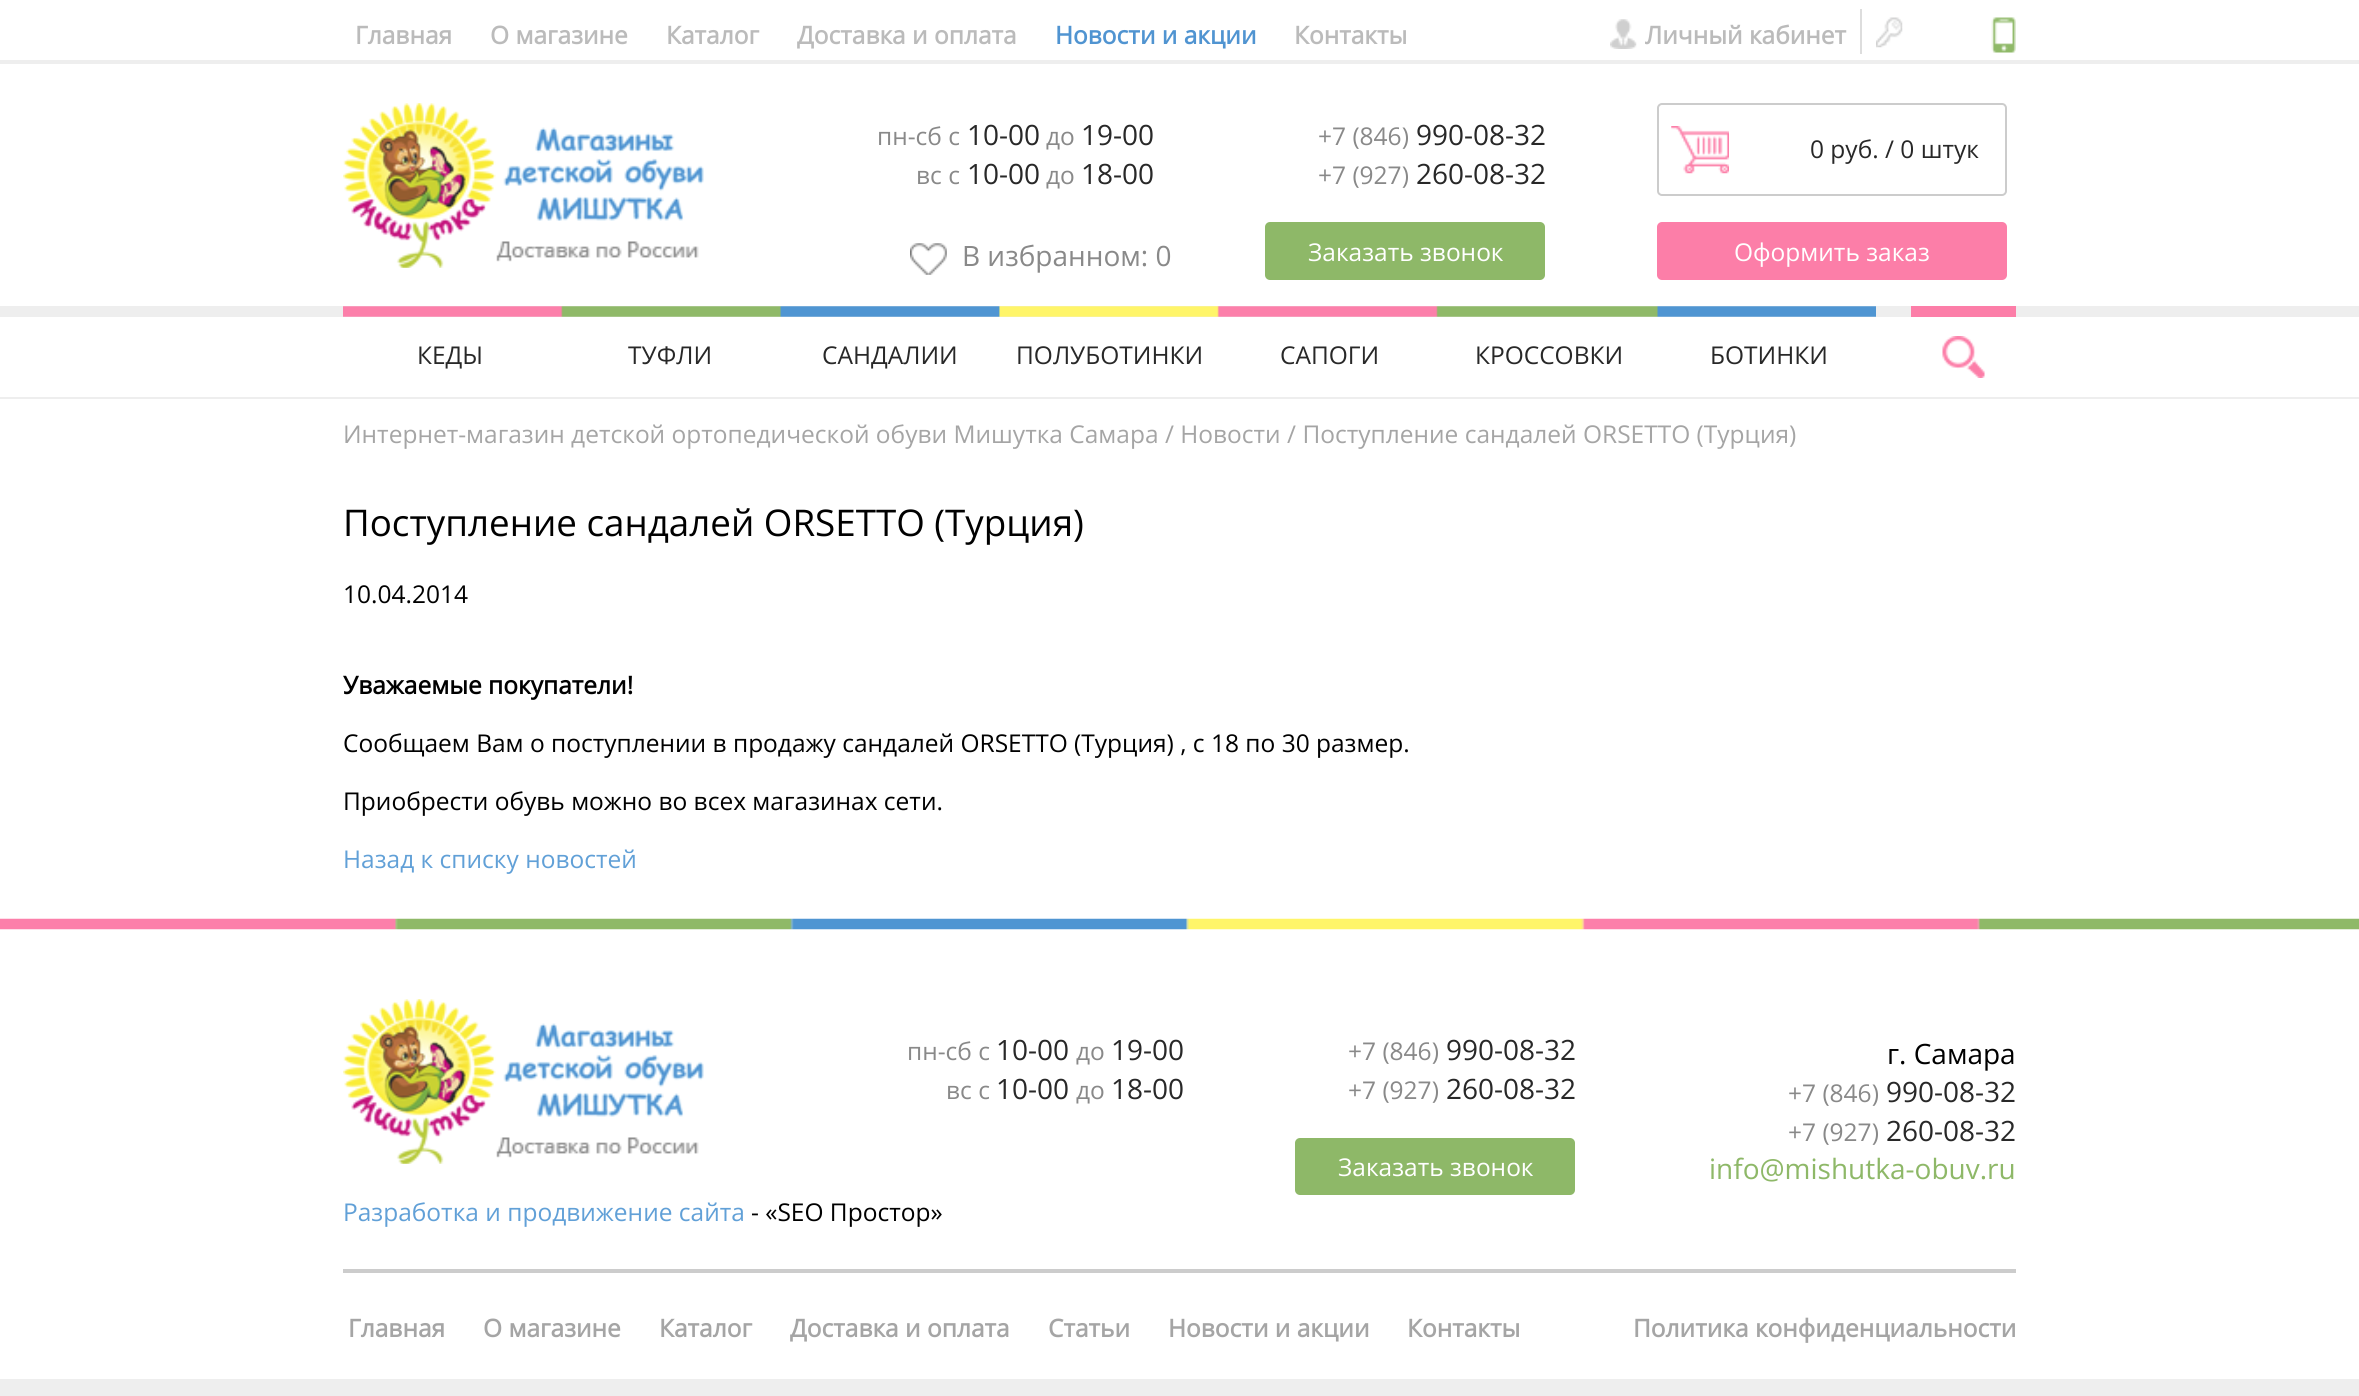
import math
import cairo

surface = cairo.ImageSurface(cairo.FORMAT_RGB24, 2359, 1396)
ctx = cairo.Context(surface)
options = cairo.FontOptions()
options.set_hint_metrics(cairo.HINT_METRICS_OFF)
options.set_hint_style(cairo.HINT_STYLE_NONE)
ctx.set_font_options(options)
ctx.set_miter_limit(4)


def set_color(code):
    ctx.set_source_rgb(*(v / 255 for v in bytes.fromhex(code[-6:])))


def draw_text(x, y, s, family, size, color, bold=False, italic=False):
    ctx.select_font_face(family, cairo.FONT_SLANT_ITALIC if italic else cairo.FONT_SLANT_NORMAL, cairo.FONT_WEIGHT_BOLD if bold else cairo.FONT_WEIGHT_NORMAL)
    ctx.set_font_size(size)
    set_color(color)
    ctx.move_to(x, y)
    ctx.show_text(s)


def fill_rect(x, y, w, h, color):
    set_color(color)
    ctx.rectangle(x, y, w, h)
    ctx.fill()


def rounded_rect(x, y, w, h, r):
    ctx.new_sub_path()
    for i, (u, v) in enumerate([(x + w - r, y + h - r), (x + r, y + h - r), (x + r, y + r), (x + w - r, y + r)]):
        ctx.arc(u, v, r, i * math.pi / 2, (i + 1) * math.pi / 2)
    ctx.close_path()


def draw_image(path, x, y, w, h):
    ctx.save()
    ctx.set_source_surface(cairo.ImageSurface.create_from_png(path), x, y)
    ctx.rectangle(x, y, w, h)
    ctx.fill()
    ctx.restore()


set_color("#ffffff")
ctx.paint()
fill_rect(0, 397, 2359, 2, "#eeeeee")
fill_rect(0, 60, 2359, 4, "#eeeeee")
draw_text(355, 44, "Главная", "Open Sans", 24.5, "#bbbbbb", bold=True)
draw_text(490, 44, "О магазине", "Open Sans", 24.5, "#bbbbbb", bold=True)
draw_text(666, 44, "Каталог", "Open Sans", 24.5, "#bbbbbb", bold=True)
draw_text(797, 44, "Доставка и оплата", "Open Sans", 24.5, "#bbbbbb", bold=True)
draw_text(1055, 44, "Новости и акции", "Open Sans", 24.5, "#5094d1", bold=True)
draw_text(1294, 44, "Контакты", "Open Sans", 24.5, "#bbbbbb", bold=True)
draw_image("assets/img1.png", 1610, 19, 27, 30)
draw_text(1645, 44, "Личный кабинет", "Open Sans", 24.5, "#bbbbbb", bold=True)
fill_rect(1860, 9, 2, 45, "#dddddd")
draw_image("assets/img2.png", 1876, 17, 27, 31)
draw_image("assets/img3.png", 1991, 17, 25, 36)
draw_image("assets/img4.png", 343, 103, 361, 165)
draw_text(877, 145, "пн-сб с", "Open Sans", 24.5, "#898989")
draw_text(967, 145, "10-00", "Open Sans", 28, "#282828")
draw_text(1046, 145, "до", "Open Sans", 24.5, "#898989")
draw_text(1081, 145, "19-00", "Open Sans", 28, "#282828")
draw_text(916, 184, "вс с", "Open Sans", 24.5, "#898989")
draw_text(967, 184, "10-00", "Open Sans", 28, "#282828")
draw_text(1046, 184, "до", "Open Sans", 24.5, "#898989")
draw_text(1081, 184, "18-00", "Open Sans", 28, "#282828")
draw_image("assets/img5.png", 910, 243, 37, 32)
draw_text(962, 266, "В избранном: 0", "Open Sans", 28, "#898989")
draw_text(1318, 145, "+7 (846)", "Open Sans", 24.5, "#898989")
draw_text(1416, 145, "990-08-32", "Open Sans", 28, "#282828")
draw_text(1318, 184, "+7 (927)", "Open Sans", 24.5, "#898989")
draw_text(1416, 184, "260-08-32", "Open Sans", 28, "#282828")
set_color("#8eb868")
rounded_rect(1265, 222, 280, 58, 5)
ctx.fill()
draw_text(1308, 261, "Заказать звонок", "Open Sans", 24.5, "#ffffff")
draw_image("assets/img6.png", 1671, 126, 58, 48)
rounded_rect(1658, 104, 348, 91, 4)
set_color("#cccccc")
ctx.stroke()
draw_text(1810, 158, "0 руб. / 0 штук", "Open Sans", 24.5, "#282828")
set_color("#fc7ea8")
rounded_rect(1657, 222, 350, 58, 5)
ctx.fill()
draw_text(1734, 261, "Оформить заказ", "Open Sans", 24.5, "#ffffff")
fill_rect(0, 306, 2359, 11, "#eeeeee")
draw_image("assets/img7.png", 343, 306, 1533, 11)
draw_text(417, 364, "КЕДЫ", "Open Sans", 24.5, "#282828")
draw_text(628, 364, "ТУФЛИ", "Open Sans", 24.5, "#282828")
draw_text(822, 364, "САНДАЛИИ", "Open Sans", 24.5, "#282828")
draw_text(1016, 364, "ПОЛУБОТИНКИ", "Open Sans", 24.5, "#282828")
draw_text(1280, 364, "САПОГИ", "Open Sans", 24.5, "#282828")
draw_text(1475, 364, "КРОССОВКИ", "Open Sans", 24.5, "#282828")
draw_text(1710, 364, "БОТИНКИ", "Open Sans", 24.5, "#282828")
fill_rect(1911, 306, 105, 11, "#fc7ea8")
draw_image("assets/img8.png", 1942, 336, 43, 42)
draw_text(343, 443, "Интернет-магазин детской ортопедической обуви Мишутка Самара / Новости / Поступление сандалей ORSETTO (Турция)", "Open Sans", 24.5, "#a5a5a5")
draw_text(343, 536, "Поступление сандалей ORSETTO (Турция)", "Open Sans", 36.75, "#000000")
draw_text(343, 603, "10.04.2014", "Open Sans", 24.5, "#000000")
draw_text(343, 694, "Уважаемые покупатели!", "Open Sans", 24.5, "#000000", bold=True)
draw_text(343, 752, "Сообщаем Вам о поступлении в продажу сандалей ORSETTO (Турция) , с 18 по 30 размер.", "Open Sans", 24.5, "#000000")
draw_text(343, 810, "Приобрести обувь можно во всех магазинах сети.", "Open Sans", 24.5, "#000000")
draw_text(343, 868, "Назад к списку новостей", "Open Sans", 24.5, "#61a0d7")
draw_image("assets/img9.png", 0, 918, 2359, 12)
draw_image("assets/img10.png", 343, 999, 361, 165)
draw_text(907, 1060, "пн-сб с", "Open Sans", 24.5, "#898989")
draw_text(996, 1060, "10-00", "Open Sans", 28, "#282828")
draw_text(1076, 1060, "до", "Open Sans", 24.5, "#898989")
draw_text(1111, 1060, "19-00", "Open Sans", 28, "#282828")
draw_text(946, 1099, "вс с", "Open Sans", 24.5, "#898989")
draw_text(996, 1099, "10-00", "Open Sans", 28, "#282828")
draw_text(1076, 1099, "до", "Open Sans", 24.5, "#898989")
draw_text(1111, 1099, "18-00", "Open Sans", 28, "#282828")
draw_text(1348, 1060, "+7 (846)", "Open Sans", 24.5, "#898989")
draw_text(1446, 1060, "990-08-32", "Open Sans", 28, "#282828")
draw_text(1348, 1099, "+7 (927)", "Open Sans", 24.5, "#898989")
draw_text(1446, 1099, "260-08-32", "Open Sans", 28, "#282828")
set_color("#8eb868")
rounded_rect(1295, 1138, 280, 57, 5)
ctx.fill()
draw_text(1338, 1176, "Заказать звонок", "Open Sans", 24.5, "#ffffff")
draw_text(1887, 1064, "г. Самара", "Open Sans", 28, "#000000")
draw_text(1788, 1102, "+7 (846)", "Open Sans", 24.5, "#898989")
draw_text(1886, 1102, "990-08-32", "Open Sans", 28, "#282828")
draw_text(1788, 1141, "+7 (927)", "Open Sans", 24.5, "#898989")
draw_text(1886, 1141, "260-08-32", "Open Sans", 28, "#282828")
draw_text(1709, 1179, "info@mishutka-obuv.ru", "Open Sans", 28, "#8eb868")
draw_text(343, 1221, "Разработка и продвижение сайта", "Open Sans", 24.5, "#61a0d7")
draw_text(751, 1221, "- «SEO Простор»", "Open Sans", 24.5, "#000000")
fill_rect(343, 1269, 1673, 4, "#cccccc")
draw_text(348, 1337, "Главная", "Open Sans", 24.5, "#a5a5a5", bold=True)
draw_text(483, 1337, "О магазине", "Open Sans", 24.5, "#a5a5a5", bold=True)
draw_text(659, 1337, "Каталог", "Open Sans", 24.5, "#a5a5a5", bold=True)
draw_text(790, 1337, "Доставка и оплата", "Open Sans", 24.5, "#a5a5a5", bold=True)
draw_text(1048, 1337, "Статьи", "Open Sans", 24.5, "#a5a5a5", bold=True)
draw_text(1168, 1337, "Новости и акции", "Open Sans", 24.5, "#a5a5a5", bold=True)
draw_text(1407, 1337, "Контакты", "Open Sans", 24.5, "#a5a5a5", bold=True)
draw_text(1633, 1337, "Политика конфиденциальности", "Open Sans", 24.5, "#a5a5a5", bold=True)
fill_rect(0, 1379, 2359, 17, "#eeeeee")
surface.write_to_png("output.png")
